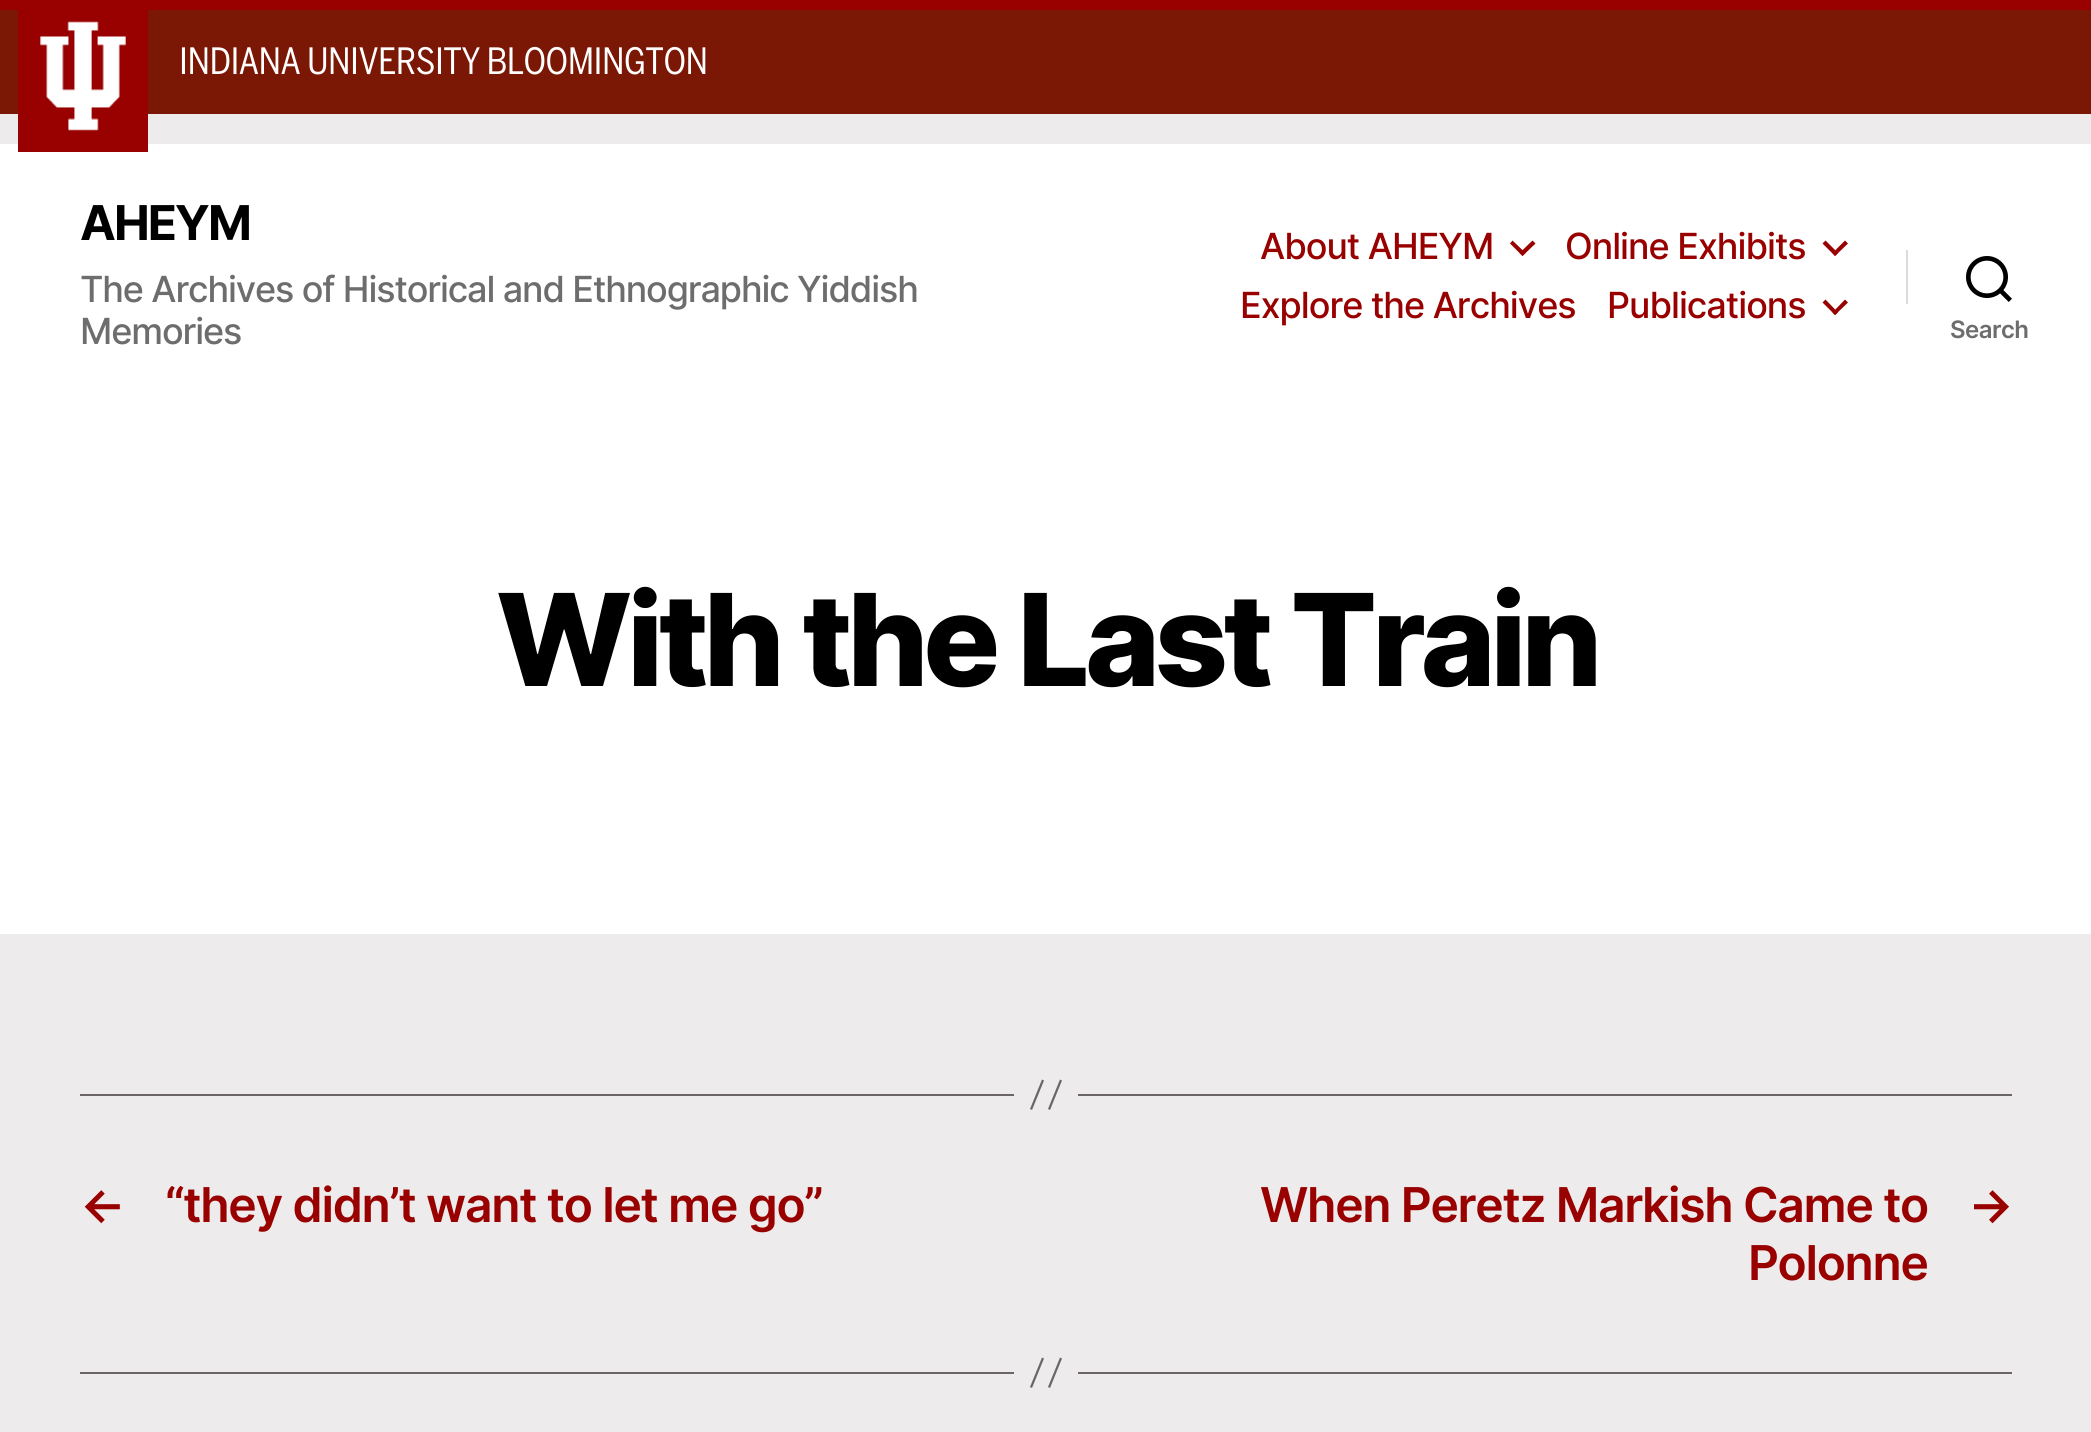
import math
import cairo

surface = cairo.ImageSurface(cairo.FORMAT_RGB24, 2091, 1432)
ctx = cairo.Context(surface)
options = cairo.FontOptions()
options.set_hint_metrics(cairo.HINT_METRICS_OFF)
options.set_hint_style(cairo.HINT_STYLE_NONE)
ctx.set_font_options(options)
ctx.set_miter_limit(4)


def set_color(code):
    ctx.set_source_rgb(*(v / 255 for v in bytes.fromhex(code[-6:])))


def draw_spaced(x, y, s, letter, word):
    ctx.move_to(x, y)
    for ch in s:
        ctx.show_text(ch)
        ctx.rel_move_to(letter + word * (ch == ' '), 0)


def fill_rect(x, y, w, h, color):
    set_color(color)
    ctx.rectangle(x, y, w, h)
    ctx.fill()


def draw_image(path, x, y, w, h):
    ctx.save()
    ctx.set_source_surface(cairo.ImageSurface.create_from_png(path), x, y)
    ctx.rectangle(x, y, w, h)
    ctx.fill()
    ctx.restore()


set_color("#edebeb")
ctx.paint()
fill_rect(0, 10, 2091, 104, "#7a1705")
fill_rect(0, 0, 2091, 10, "#990000")
fill_rect(0, 144, 2091, 790, "#ffffff")
draw_image("assets/img1.png", 18, 10, 130, 142)
ctx.select_font_face("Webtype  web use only")
ctx.set_font_size(36)
draw_spaced(179, 74, "INDIANA UNIVERSITY BLOOMINGTON", -0.55, 0)
ctx.select_font_face("Inter", cairo.FONT_SLANT_NORMAL, cairo.FONT_WEIGHT_BOLD)
ctx.set_font_size(48)
set_color("#000000")
draw_spaced(80, 240, "AHEYM", -2, 0)
ctx.select_font_face("Inter Medium")
ctx.set_font_size(36)
set_color("#6d6d6d")
draw_spaced(80, 302, "The Archives of Historical and Ethnographic Yiddish", -1.12, 0)
draw_spaced(80, 344, "Memories", -1.12, 0)
set_color("#990000")
draw_spaced(1260, 259, "About AHEYM", -1, 0)
ctx.new_path()
ctx.move_to(1510, 243.5)
ctx.line_to(1512.5, 240.5)
ctx.line_to(1525.5, 253)
ctx.line_to(1522.5, 256)
ctx.close_path()
ctx.fill()
ctx.new_path()
ctx.move_to(1519.5, 253)
ctx.line_to(1532.5, 240.5)
ctx.line_to(1535.5, 243.5)
ctx.line_to(1522.5, 256)
ctx.close_path()
ctx.fill()
draw_spaced(1565, 259, "Online Exhibits", -1, 0)
ctx.new_path()
ctx.move_to(1822.5, 243.5)
ctx.line_to(1825.5, 240.5)
ctx.line_to(1838, 253)
ctx.line_to(1835, 256)
ctx.close_path()
ctx.fill()
ctx.new_path()
ctx.move_to(1832.5, 253)
ctx.line_to(1845, 240.5)
ctx.line_to(1848, 243.5)
ctx.line_to(1835, 256)
ctx.close_path()
ctx.fill()
draw_spaced(1240, 318, "Explore the Archives", -1, 0)
draw_spaced(1607, 318, "Publications", -1, 0)
ctx.new_path()
ctx.move_to(1822.5, 302.5)
ctx.line_to(1825.5, 299.5)
ctx.line_to(1838, 312.5)
ctx.line_to(1835, 315)
ctx.close_path()
ctx.fill()
ctx.new_path()
ctx.move_to(1832.5, 312.5)
ctx.line_to(1845, 299.5)
ctx.line_to(1848, 302.5)
ctx.line_to(1835, 315)
ctx.close_path()
ctx.fill()
fill_rect(1906, 250, 2, 54, "#dbdbdb")
draw_image("assets/img2.png", 1966, 256, 46, 46)
ctx.select_font_face("Inter SemiBold")
ctx.set_font_size(24)
set_color("#6d6d6d")
draw_spaced(1950, 338, "Search", -0.55, 0)
ctx.select_font_face("Inter ExtraBold")
ctx.set_font_size(128)
set_color("#000000")
draw_spaced(496, 686, "With the Last Train", -5.3, 0)
fill_rect(1078, 1094, 934, 2, "#6b6565")
fill_rect(80, 1094, 934, 2, "#6b6565")
ctx.new_path()
ctx.move_to(1042, 1079.5)
ctx.line_to(1044, 1080.5)
ctx.line_to(1032, 1110)
ctx.line_to(1030, 1109)
ctx.close_path()
ctx.move_to(1060, 1079.5)
ctx.line_to(1062, 1080.5)
ctx.line_to(1050, 1110)
ctx.line_to(1048, 1109)
ctx.close_path()
ctx.fill()
ctx.select_font_face("Inter SemiBold")
ctx.set_font_size(48)
set_color("#990000")
draw_spaced(80, 1222, "←", -1.3, 0)
draw_spaced(165, 1222, "“they didn’t want to let me go”", -1.3, 0)
draw_spaced(1260, 1222, "When Peretz Markish Came to", -1.3, 0)
draw_spaced(1748, 1280, "Polonne", -1.3, 0)
draw_spaced(1968, 1222, "→", -1.3, 0)
fill_rect(1078, 1372, 934, 2, "#6b6565")
fill_rect(80, 1372, 934, 2, "#6b6565")
ctx.new_path()
ctx.move_to(1042, 1357.5)
ctx.line_to(1044, 1358.5)
ctx.line_to(1032, 1388)
ctx.line_to(1030, 1387)
ctx.close_path()
ctx.move_to(1060, 1357.5)
ctx.line_to(1062, 1358.5)
ctx.line_to(1050, 1388)
ctx.line_to(1048, 1387)
ctx.close_path()
ctx.fill()
surface.write_to_png("output.png")
